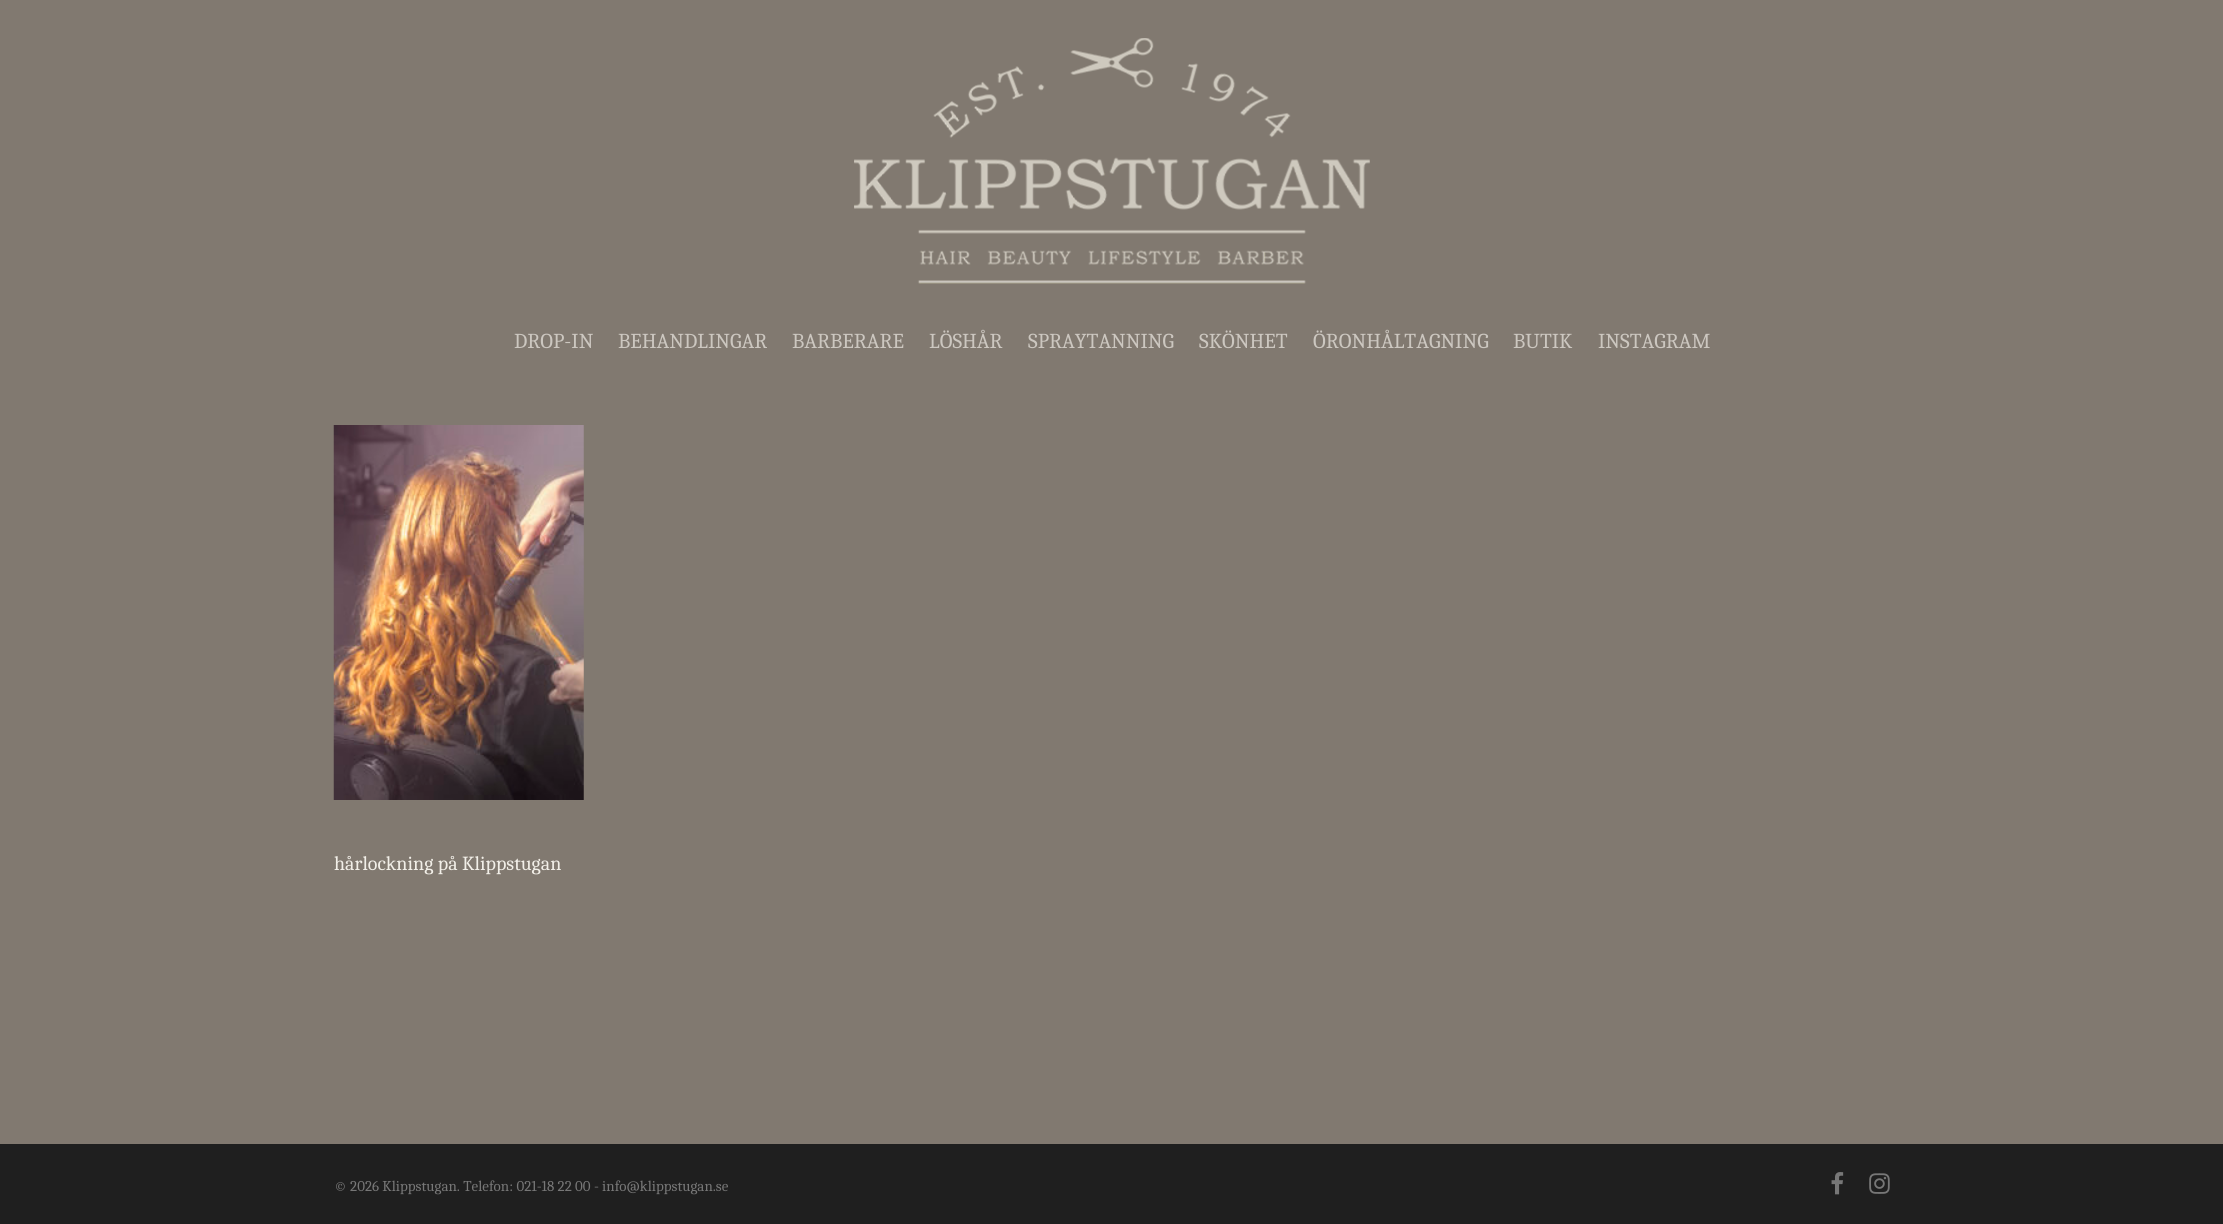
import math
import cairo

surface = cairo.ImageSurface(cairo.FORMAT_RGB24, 2223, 1224)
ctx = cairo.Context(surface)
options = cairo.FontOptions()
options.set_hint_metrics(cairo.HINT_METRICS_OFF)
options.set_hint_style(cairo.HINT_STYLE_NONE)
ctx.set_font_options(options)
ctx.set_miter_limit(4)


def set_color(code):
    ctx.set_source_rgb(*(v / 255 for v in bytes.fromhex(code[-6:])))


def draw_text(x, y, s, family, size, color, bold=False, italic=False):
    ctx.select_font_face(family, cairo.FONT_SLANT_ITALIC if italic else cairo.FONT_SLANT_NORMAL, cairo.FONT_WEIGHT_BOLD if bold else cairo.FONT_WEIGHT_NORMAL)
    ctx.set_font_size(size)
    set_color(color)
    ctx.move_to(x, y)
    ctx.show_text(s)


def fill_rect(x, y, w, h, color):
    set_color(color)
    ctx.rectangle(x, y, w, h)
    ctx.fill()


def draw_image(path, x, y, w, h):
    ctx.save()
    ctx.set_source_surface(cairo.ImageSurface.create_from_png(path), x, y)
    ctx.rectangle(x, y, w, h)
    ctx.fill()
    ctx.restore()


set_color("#817970")
ctx.paint()
draw_image("assets/img1.png", 854, 38, 516, 246)
draw_text(514, 348, "DROP-IN", "Caladea", 21.25, "#ccc7c0")
draw_text(618, 348, "BEHANDLINGAR", "Caladea", 21.25, "#ccc7c0")
draw_text(792, 348, "BARBERARE", "Caladea", 21.25, "#ccc7c0")
draw_text(929, 348, "LÖSHÅR", "Caladea", 21.25, "#ccc7c0")
draw_text(1028, 348, "SPRAYTANNING", "Caladea", 21.25, "#ccc7c0")
draw_text(1199, 348, "SKÖNHET", "Caladea", 21.25, "#ccc7c0")
draw_text(1313, 348, "ÖRONHÅLTAGNING", "Caladea", 21.25, "#ccc7c0")
draw_text(1513, 348, "BUTIK", "Caladea", 21.25, "#ccc7c0")
draw_text(1598, 348, "INSTAGRAM", "Caladea", 21.25, "#ccc7c0")
draw_image("assets/img2.png", 333, 425, 251, 375)
draw_text(334, 870, "hårlockning på Klippstugan", "Caladea", 20, "#f2efe8")
fill_rect(0, 1144, 2223, 80, "#1f1f1f")
draw_text(334, 1191, "© 2026 Klippstugan. Telefon: 021-18 22 00 - info@klippstugan.se", "Caladea", 15, "#777777")
draw_image("assets/img3.png", 1831, 1172, 13, 23)
draw_image("assets/img4.png", 1869, 1173, 21, 21)
surface.write_to_png("output.png")
